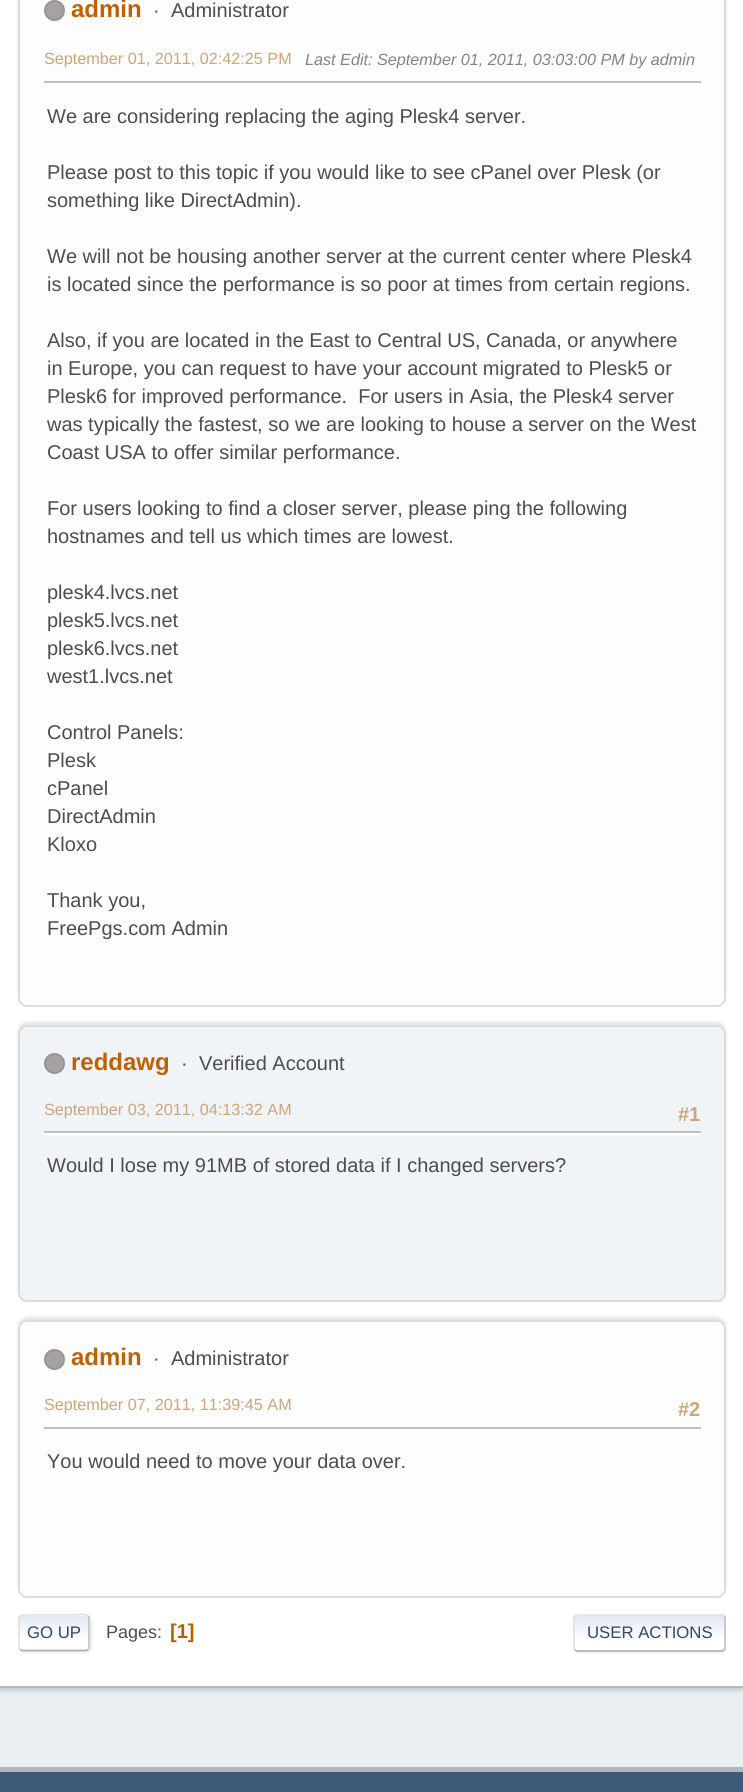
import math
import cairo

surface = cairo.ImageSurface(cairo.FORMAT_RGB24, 743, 1792)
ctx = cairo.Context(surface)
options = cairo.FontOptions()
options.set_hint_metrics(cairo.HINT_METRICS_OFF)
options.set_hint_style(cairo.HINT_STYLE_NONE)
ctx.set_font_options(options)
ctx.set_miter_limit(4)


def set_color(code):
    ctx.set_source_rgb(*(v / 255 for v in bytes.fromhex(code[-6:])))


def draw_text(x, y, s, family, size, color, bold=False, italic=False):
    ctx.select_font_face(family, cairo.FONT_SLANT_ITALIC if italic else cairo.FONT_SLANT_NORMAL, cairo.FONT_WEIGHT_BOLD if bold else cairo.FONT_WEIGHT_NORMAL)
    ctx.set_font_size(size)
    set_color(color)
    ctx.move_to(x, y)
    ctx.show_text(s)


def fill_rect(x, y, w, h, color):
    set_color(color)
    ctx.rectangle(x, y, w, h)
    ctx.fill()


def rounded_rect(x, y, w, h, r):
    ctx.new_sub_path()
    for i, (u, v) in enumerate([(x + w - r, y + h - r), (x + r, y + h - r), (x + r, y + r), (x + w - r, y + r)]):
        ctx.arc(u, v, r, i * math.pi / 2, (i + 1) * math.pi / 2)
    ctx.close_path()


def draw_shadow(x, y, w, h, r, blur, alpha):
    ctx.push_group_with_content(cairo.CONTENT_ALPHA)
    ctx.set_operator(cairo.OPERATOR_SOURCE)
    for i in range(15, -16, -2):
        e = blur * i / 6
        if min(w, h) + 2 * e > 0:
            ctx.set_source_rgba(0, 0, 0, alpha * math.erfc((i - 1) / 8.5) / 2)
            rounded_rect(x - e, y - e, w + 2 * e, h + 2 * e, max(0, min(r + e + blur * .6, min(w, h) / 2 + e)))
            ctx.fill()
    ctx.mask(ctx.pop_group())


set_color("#e9eef2")
ctx.paint()
set_color("#000000")
draw_shadow(0, -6, 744, 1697, 0, 2, 0.14)
fill_rect(0, 0, 743, 1686, "#ffffff")
fill_rect(0, 1686, 743, 2, "#b8b8b8")
set_color("#000000")
draw_shadow(18, -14, 708, 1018, 9, 1.5, 0.1)
set_color("#fdfdfd")
rounded_rect(19, -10, 706, 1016, 8)
ctx.fill_preserve()
set_color("#dddddd")
ctx.stroke()
set_color("#a7a2a2")
ctx.arc(54.5, 10.5, 9.5, 0, 2 * math.pi)
ctx.fill_preserve()
set_color("#969292")
ctx.stroke()
draw_text(71, 17, "admin", "Liberation Sans", 24, "#c06002", bold=True)
draw_text(153, 17, "·", "Liberation Sans", 20, "#4d4d4d")
draw_text(171, 17, "Administrator", "Liberation Sans", 20, "#4d4d4d")
draw_text(44, 64, "September 01, 2011, 02:42:25 PM", "Liberation Sans", 16.2, "#cda47b")
draw_text(305, 65, "Last Edit: September 01, 2011, 03:03:00 PM by admin", "Liberation Sans", 16.2, "#848484", italic=True)
fill_rect(44, 81, 657, 2, "#bfbfbf")
draw_text(47, 123, "We are considering replacing the aging Plesk4 server.", "Liberation Sans", 20, "#4d4d4d")
draw_text(47, 179, "Please post to this topic if you would like to see cPanel over Plesk (or", "Liberation Sans", 20, "#4d4d4d")
draw_text(47, 207, "something like DirectAdmin).", "Liberation Sans", 20, "#4d4d4d")
draw_text(47, 263, "We will not be housing another server at the current center where Plesk4", "Liberation Sans", 20, "#4d4d4d")
draw_text(47, 291, "is located since the performance is so poor at times from certain regions.", "Liberation Sans", 20, "#4d4d4d")
draw_text(47, 347, "Also, if you are located in the East to Central US, Canada, or anywhere", "Liberation Sans", 20, "#4d4d4d")
draw_text(47, 375, "in Europe, you can request to have your account migrated to Plesk5 or", "Liberation Sans", 20, "#4d4d4d")
draw_text(47, 403, "Plesk6 for improved performance.  For users in Asia, the Plesk4 server", "Liberation Sans", 20, "#4d4d4d")
draw_text(47, 431, "was typically the fastest, so we are looking to house a server on the West", "Liberation Sans", 20, "#4d4d4d")
draw_text(47, 459, "Coast USA to offer similar performance.", "Liberation Sans", 20, "#4d4d4d")
draw_text(47, 515, "For users looking to find a closer server, please ping the following", "Liberation Sans", 20, "#4d4d4d")
draw_text(47, 543, "hostnames and tell us which times are lowest.", "Liberation Sans", 20, "#4d4d4d")
draw_text(47, 599, "plesk4.lvcs.net", "Liberation Sans", 20, "#4d4d4d")
draw_text(47, 627, "plesk5.lvcs.net", "Liberation Sans", 20, "#4d4d4d")
draw_text(47, 655, "plesk6.lvcs.net", "Liberation Sans", 20, "#4d4d4d")
draw_text(47, 683, "west1.lvcs.net", "Liberation Sans", 20, "#4d4d4d")
draw_text(47, 739, "Control Panels:", "Liberation Sans", 20, "#4d4d4d")
draw_text(47, 767, "Plesk", "Liberation Sans", 20, "#4d4d4d")
draw_text(47, 795, "cPanel", "Liberation Sans", 20, "#4d4d4d")
draw_text(47, 823, "DirectAdmin", "Liberation Sans", 20, "#4d4d4d")
draw_text(47, 851, "Kloxo", "Liberation Sans", 20, "#4d4d4d")
draw_text(47, 907, "Thank you,", "Liberation Sans", 20, "#4d4d4d")
draw_text(47, 935, "FreePgs.com Admin", "Liberation Sans", 20, "#4d4d4d")
set_color("#000000")
draw_shadow(18, 1022, 708, 277, 9, 1.5, 0.1)
set_color("#f0f4f7")
rounded_rect(19, 1026, 706, 275, 8)
ctx.fill_preserve()
set_color("#dddddd")
ctx.stroke()
set_color("#a7a2a2")
ctx.arc(54.5, 1063.5, 9.5, 0, 2 * math.pi)
ctx.fill_preserve()
set_color("#969292")
ctx.stroke()
draw_text(71, 1070, "reddawg", "Liberation Sans", 24, "#c06002", bold=True)
draw_text(181, 1070, "·", "Liberation Sans", 20, "#4d4d4d")
draw_text(199, 1070, "Verified Account", "Liberation Sans", 20, "#4d4d4d")
draw_text(44, 1115, "September 03, 2011, 04:13:32 AM", "Liberation Sans", 16.2, "#cda47b")
draw_text(678, 1121, "#1", "Liberation Sans", 20, "#cda47b", bold=True)
fill_rect(44, 1133, 657, 2, "#ffffff")
fill_rect(44, 1131, 657, 2, "#bfbfbf")
draw_text(47, 1172, "Would I lose my 91MB of stored data if I changed servers?", "Liberation Sans", 20, "#4d4d4d")
set_color("#000000")
draw_shadow(18, 1317, 708, 278, 9, 1.5, 0.1)
set_color("#fdfdfd")
rounded_rect(19, 1321, 706, 276, 8)
ctx.fill_preserve()
set_color("#dddddd")
ctx.stroke()
set_color("#a7a2a2")
ctx.arc(54.5, 1359.5, 9.5, 0, 2 * math.pi)
ctx.fill_preserve()
set_color("#969292")
ctx.stroke()
draw_text(71, 1365, "admin", "Liberation Sans", 24, "#c06002", bold=True)
draw_text(153, 1365, "·", "Liberation Sans", 20, "#4d4d4d")
draw_text(171, 1365, "Administrator", "Liberation Sans", 20, "#4d4d4d")
draw_text(44, 1410, "September 07, 2011, 11:39:45 AM", "Liberation Sans", 16.2, "#cda47b")
draw_text(678, 1416, "#2", "Liberation Sans", 20, "#cda47b", bold=True)
fill_rect(44, 1427, 657, 2, "#bfbfbf")
draw_text(47, 1468, "You would need to move your data over.", "Liberation Sans", 20, "#4d4d4d")
set_color("#dddddd")
draw_shadow(20, 1616, 72, 37, 5, 1, 0.57)
set_color("#ffffff")
rounded_rect(18, 1614, 72, 38, 5)
ctx.fill()
ctx.save()
rounded_rect(18, 1614, 72, 38, 5)
ctx.clip()
gradient = cairo.LinearGradient(54, 1616, 54, 1650)
gradient.add_color_stop_rgba(0, 0.886, 0.914, 0.953, 1)
gradient.add_color_stop_rgba(0.7, 1, 1, 1, 1)
ctx.set_source(gradient)
ctx.rectangle(18, 1616, 72, 34)
ctx.fill()
gradient = cairo.LinearGradient(54, 1650, 54, 1685)
gradient.add_color_stop_rgba(0, 0.886, 0.914, 0.953, 1)
gradient.add_color_stop_rgba(0.7, 1, 1, 1, 1)
ctx.set_source(gradient)
ctx.rectangle(18, 1650, 72, 2)
ctx.fill()
ctx.restore()
ctx.new_path()
ctx.move_to(88, 1616)
ctx.curve_to(89, 1616.5, 89, 1617.5, 89, 1618.5)
ctx.line_to(89, 1647)
ctx.curve_to(89, 1648, 89, 1649, 88, 1649.5)
set_color("#bbbbbb")
ctx.set_line_width(1.5)
ctx.stroke()
ctx.new_path()
ctx.move_to(88, 1649.5)
ctx.line_to(86, 1650.5)
ctx.line_to(22, 1650.5)
ctx.line_to(20, 1649.5)
set_color("#aaaaaa")
ctx.stroke()
ctx.save()
ctx.rectangle(18, 1604, 708, 58)
ctx.clip()
ctx.new_path()
ctx.move_to(20, 1649.5)
ctx.curve_to(18, 1648, 19, 1644.5, 19, 1642)
ctx.line_to(19, 1633)
ctx.curve_to(19, 1614, 15, 1615, 33, 1615)
ctx.line_to(75, 1615)
ctx.curve_to(75, 1615, 85.5, 1613, 88, 1616)
set_color("#dddddd")
ctx.stroke()
ctx.restore()
draw_text(27, 1638, "GO UP", "Liberation Sans", 16.75, "#334466")
draw_text(106, 1638, "Pages:", "Liberation Sans", 18, "#4d4d4d")
draw_text(170, 1638, "[1]", "Liberation Sans", 20, "#b46100", bold=True)
ctx.save()
ctx.rectangle(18, 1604, 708, 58)
ctx.clip()
set_color("#dddddd")
draw_shadow(575, 1616, 153, 37, 5, 1, 0.57)
ctx.restore()
ctx.save()
rounded_rect(573, 1614, 153, 38, 5)
ctx.clip()
gradient = cairo.LinearGradient(650, 1616, 650, 1650)
gradient.add_color_stop_rgba(0, 0.886, 0.914, 0.953, 1)
gradient.add_color_stop_rgba(0.7, 1, 1, 1, 1)
ctx.set_source(gradient)
ctx.rectangle(573, 1616, 153, 34)
ctx.fill()
gradient = cairo.LinearGradient(650, 1650, 650, 1685)
gradient.add_color_stop_rgba(0, 0.886, 0.914, 0.953, 1)
gradient.add_color_stop_rgba(0.7, 1, 1, 1, 1)
ctx.set_source(gradient)
ctx.rectangle(573, 1650, 153, 2)
ctx.fill()
ctx.restore()
ctx.new_path()
ctx.move_to(724, 1616)
ctx.curve_to(725, 1616.5, 725, 1617.5, 725, 1618.5)
ctx.line_to(725, 1647)
ctx.curve_to(725, 1648, 725, 1649, 724, 1649.5)
set_color("#bbbbbb")
ctx.stroke()
ctx.new_path()
ctx.move_to(724, 1649.5)
ctx.curve_to(723.5, 1650.5, 722.5, 1651, 721.5, 1651)
ctx.line_to(577.5, 1651)
ctx.curve_to(576.5, 1651, 575.5, 1650.5, 575, 1649.5)
set_color("#aaaaaa")
ctx.stroke()
ctx.new_path()
ctx.move_to(575, 1649.5)
ctx.curve_to(574, 1649, 574, 1648, 574, 1647)
ctx.line_to(574, 1618.5)
ctx.curve_to(574, 1617.5, 574, 1616.5, 575, 1616)
ctx.curve_to(575.5, 1615, 576.5, 1615, 577.5, 1615)
ctx.line_to(721.5, 1615)
ctx.curve_to(722.5, 1615, 723.5, 1615, 724, 1616)
set_color("#dddddd")
ctx.stroke()
draw_text(587, 1638, "USER ACTIONS", "Liberation Sans", 16.75, "#334466")
fill_rect(0, 1772, 743, 20, "#3e5a78")
fill_rect(0, 1767, 743, 5, "#b2b6bd")
surface.write_to_png("output.png")
